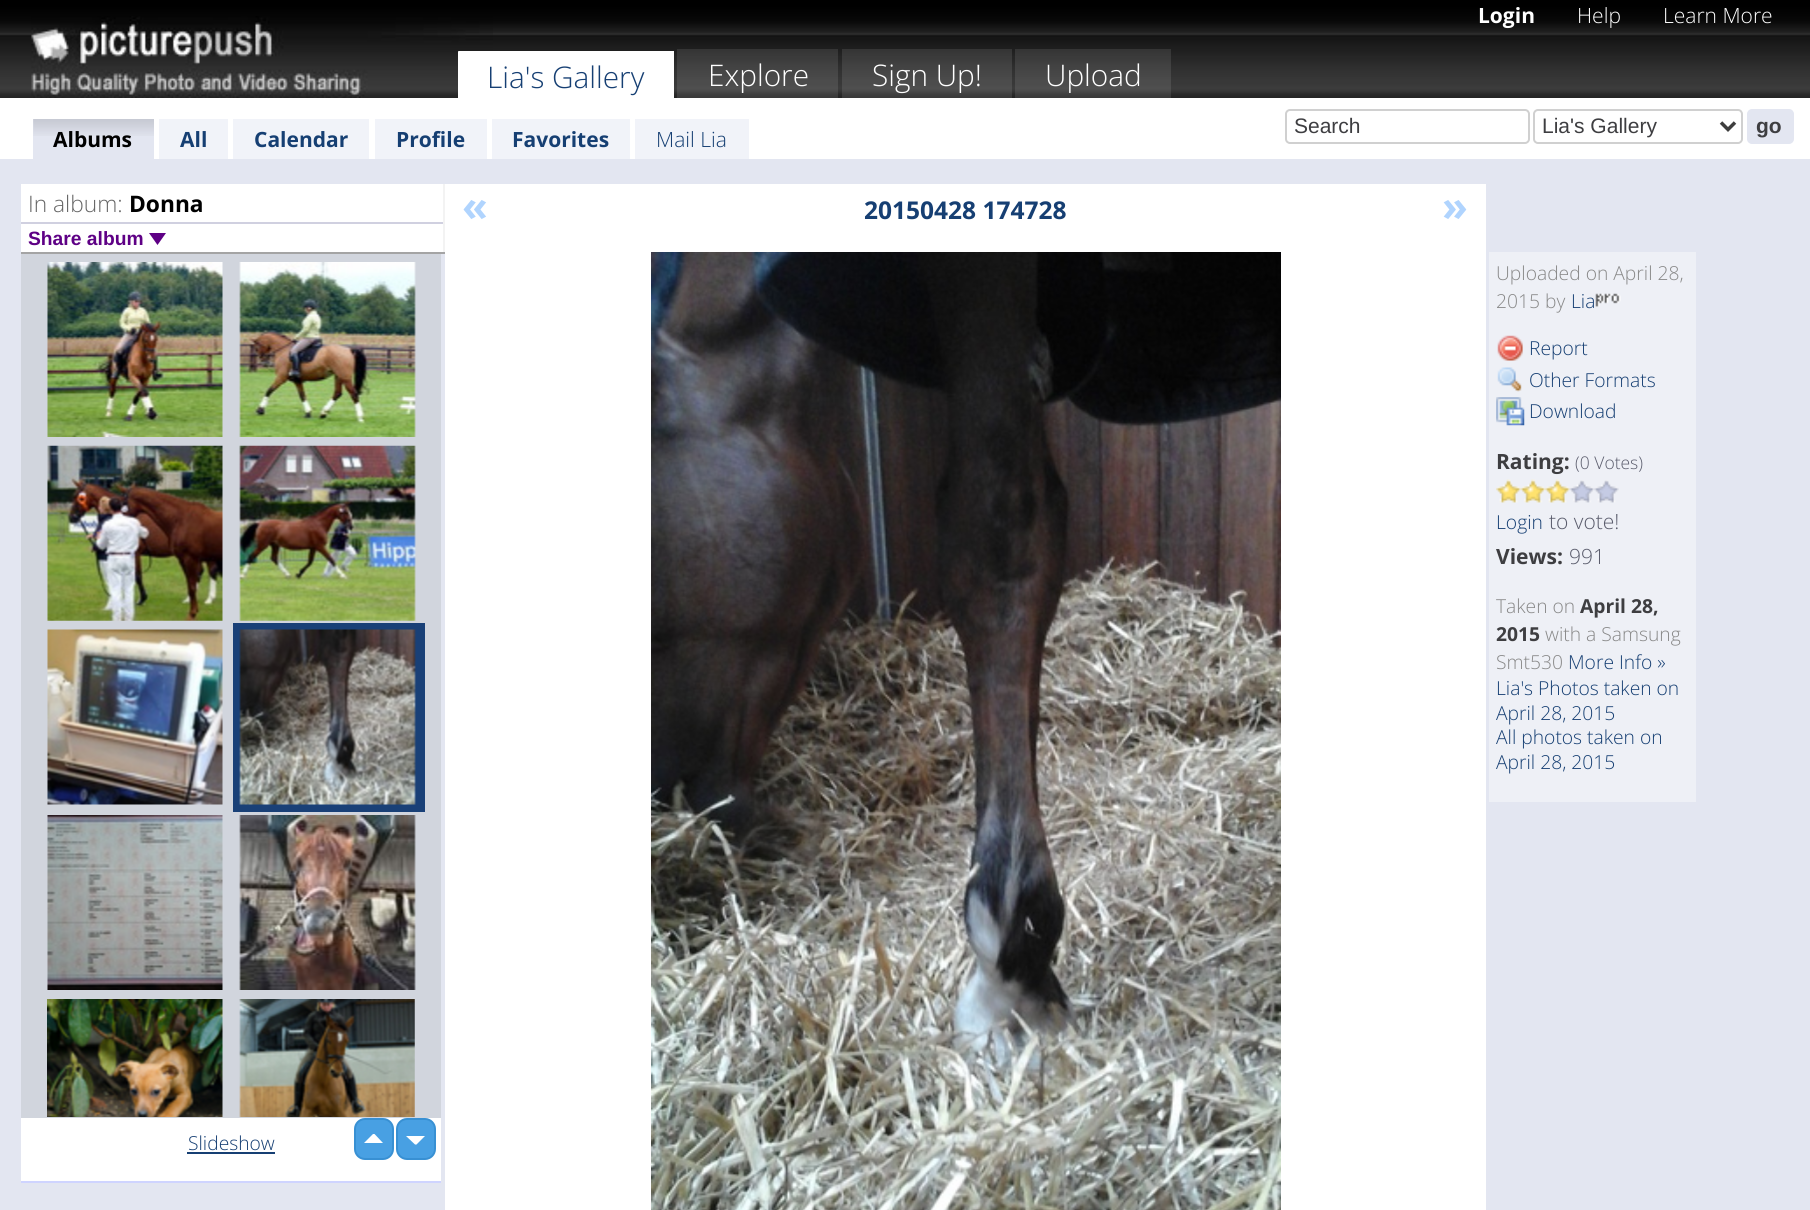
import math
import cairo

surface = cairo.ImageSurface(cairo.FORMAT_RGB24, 1810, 1210)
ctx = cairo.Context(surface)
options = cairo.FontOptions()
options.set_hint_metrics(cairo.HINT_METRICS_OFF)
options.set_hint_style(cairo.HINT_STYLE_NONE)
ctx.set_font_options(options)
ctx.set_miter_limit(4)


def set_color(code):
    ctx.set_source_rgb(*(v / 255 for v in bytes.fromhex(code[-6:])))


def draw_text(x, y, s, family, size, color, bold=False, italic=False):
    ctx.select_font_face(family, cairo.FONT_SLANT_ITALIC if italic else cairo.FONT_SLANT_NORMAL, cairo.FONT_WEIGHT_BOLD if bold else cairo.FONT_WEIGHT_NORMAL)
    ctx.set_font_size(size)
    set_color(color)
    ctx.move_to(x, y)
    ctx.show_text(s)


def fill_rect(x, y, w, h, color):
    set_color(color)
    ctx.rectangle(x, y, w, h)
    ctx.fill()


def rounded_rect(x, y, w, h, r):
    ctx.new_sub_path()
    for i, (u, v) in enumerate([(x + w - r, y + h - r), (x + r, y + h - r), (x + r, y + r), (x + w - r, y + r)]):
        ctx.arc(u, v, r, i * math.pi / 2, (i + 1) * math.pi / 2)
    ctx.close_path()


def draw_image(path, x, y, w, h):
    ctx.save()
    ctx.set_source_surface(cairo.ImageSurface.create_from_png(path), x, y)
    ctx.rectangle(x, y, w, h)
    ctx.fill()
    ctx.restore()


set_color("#e3e6f1")
ctx.paint()
draw_image("assets/img1.png", 0, 0, 1810, 98)
draw_image("assets/img2.png", 31, 16, 462, 82)
fill_rect(459, 51, 215, 47, "#ffffff")
draw_text(487, 88, "Lia's Gallery", "Open Sans Light", 29.75, "#163f73")
set_color("#ffffff")
ctx.new_path()
ctx.move_to(458, 51)
ctx.line_to(674, 51)
ctx.line_to(672, 52)
ctx.line_to(460, 52)
ctx.close_path()
ctx.fill()
fill_rect(0, 98, 1810, 61, "#ffffff")
ctx.new_path()
ctx.move_to(458, 108)
ctx.line_to(458, 51)
ctx.line_to(460, 52)
ctx.line_to(460, 107)
ctx.close_path()
ctx.fill()
ctx.set_source_rgba(1, 1, 1, 0.1)
ctx.rectangle(677, 49, 161, 49)
ctx.fill()
draw_text(708, 86, "Explore", "Open Sans Light", 29.75, "#ffffff")
ctx.set_source_rgba(1, 1, 1, 0.1)
ctx.rectangle(842, 49, 170, 49)
ctx.fill()
draw_text(872, 86, "Sign Up!", "Open Sans Light", 29.75, "#ffffff")
ctx.set_source_rgba(1, 1, 1, 0.1)
ctx.rectangle(1015, 49, 156, 49)
ctx.fill()
draw_text(1045, 86, "Upload", "Open Sans Light", 29.75, "#ffffff")
draw_text(1478, 23, "Login", "Open Sans", 21, "#ffffff", bold=True)
draw_text(1577, 23, "Help", "Open Sans Light", 21, "#ffffff")
draw_text(1663, 23, "Learn More", "Open Sans Light", 21, "#ffffff")
fill_rect(33, 119, 121, 40, "#e3e6f1")
draw_image("assets/img3.png", 33, 119, 121, 17)
draw_text(53, 147, "Albums", "Open Sans", 21, "#000000", bold=True)
fill_rect(159, 119, 69, 40, "#f1f3f9")
draw_text(180, 147, "All", "Open Sans", 21, "#163f73", bold=True)
fill_rect(233, 119, 136, 40, "#f1f3f9")
draw_text(254, 147, "Calendar", "Open Sans", 21, "#163f73", bold=True)
fill_rect(375, 119, 112, 40, "#f1f3f9")
draw_text(396, 147, "Profile", "Open Sans", 21, "#163f73", bold=True)
fill_rect(492, 119, 138, 40, "#f1f3f9")
draw_text(512, 147, "Favorites", "Open Sans", 21, "#163f73", bold=True)
fill_rect(635, 119, 114, 40, "#f1f3f9")
draw_text(656, 147, "Mail Lia", "Open Sans Light", 21, "#163f73")
rounded_rect(1286, 110, 243, 33, 4)
set_color("#d0d0d0")
ctx.stroke()
draw_text(1294, 133, "Search", "Liberation Sans", 21, "#3e3e41")
rounded_rect(1534, 110, 208, 33, 4)
set_color("#d0d0d0")
ctx.stroke()
ctx.new_path()
ctx.move_to(1721, 122.5)
ctx.line_to(1728, 129.5)
ctx.line_to(1735, 122.5)
set_color("#3e3e3e")
ctx.set_line_width(3.5)
ctx.stroke()
draw_text(1542, 133, "Lia's Gallery", "Liberation Sans", 21, "#3e3e41")
set_color("#e3e6f1")
rounded_rect(1748, 110, 45, 33, 4)
ctx.fill_preserve()
ctx.set_line_width(2)
ctx.stroke()
draw_text(1756, 133, "go", "Liberation Sans", 21, "#3e3e41", bold=True)
fill_rect(21, 184, 422, 68, "#ffffff")
fill_rect(443, 184, 2, 70, "#f3f3f3")
fill_rect(21, 252, 424, 2, "#a4a4a4")
draw_text(28, 212, "In album:", "Open Sans Light", 22.75, "#666666")
draw_text(129, 212, "Donna", "Open Sans", 22.75, "#000000", bold=True)
fill_rect(21, 222, 422, 2, "#d0d0e0")
draw_text(28, 245, "Share album", "Liberation Sans", 19.25, "#5e0085", bold=True)
ctx.new_path()
ctx.move_to(149, 233)
ctx.line_to(166, 233)
ctx.line_to(157.5, 245)
ctx.close_path()
ctx.fill()
fill_rect(21, 254, 420, 864, "#d1d5dd")
fill_rect(21, 1181, 420, 2, "#cfd4ff")
draw_image("assets/img4.png", 47, 262, 176, 175)
draw_image("assets/img5.png", 239, 262, 177, 175)
draw_image("assets/img6.png", 47, 445, 176, 176)
draw_image("assets/img7.png", 239, 445, 177, 176)
draw_image("assets/img8.png", 47, 629, 176, 176)
fill_rect(233, 623, 192, 189, "#194077")
draw_image("assets/img9.png", 239, 629, 177, 176)
draw_image("assets/img10.png", 47, 815, 176, 175)
draw_image("assets/img11.png", 239, 815, 177, 175)
draw_image("assets/img12.png", 47, 999, 176, 118)
draw_image("assets/img13.png", 239, 999, 176, 118)
fill_rect(21, 1118, 420, 63, "#ffffff")
set_color("#48a0e3")
rounded_rect(355, 1119, 38, 40, 10)
ctx.fill_preserve()
set_color("#3890d3")
ctx.stroke()
set_color("#48a0e3")
rounded_rect(397, 1119, 38, 40, 10)
ctx.fill_preserve()
set_color("#3890d3")
ctx.stroke()
set_color("#ffffff")
ctx.new_path()
ctx.move_to(383, 1143)
ctx.line_to(364, 1143)
ctx.line_to(373, 1134)
ctx.line_to(374.5, 1134)
ctx.close_path()
ctx.move_to(406, 1136)
ctx.line_to(425, 1136)
ctx.line_to(416.5, 1144.5)
ctx.line_to(415, 1144.5)
ctx.close_path()
ctx.fill()
draw_text(188, 1150, "Slideshow", "Open Sans Light", 19.25, "#163f73")
fill_rect(187, 1152, 88, 2, "#163f73")
fill_rect(445, 184, 1041, 1026, "#ffffff")
draw_text(462, 221, "«", "Open Sans", 42, "#b0d4fe", bold=True)
draw_text(864, 219, "20150428 174728", "Open Sans", 24.5, "#163f73", bold=True)
draw_text(1442, 221, "»", "Open Sans", 42, "#b0d4fe", bold=True)
draw_image("assets/img14.png", 651, 252, 630, 958)
fill_rect(1489, 252, 207, 550, "#eef0f6")
draw_text(1496, 280, "Uploaded on April 28,", "Open Sans Light", 19.25, "#888888")
draw_text(1496, 308, "2015 by", "Open Sans Light", 19.25, "#888888")
draw_text(1571, 308, "Lia", "Open Sans Light", 19.25, "#163f73")
draw_image("assets/img15.png", 1595, 293, 26, 14)
draw_image("assets/img16.png", 1497, 335, 26, 26)
draw_text(1529, 355, "Report", "Open Sans Light", 19.25, "#163f73")
draw_image("assets/img17.png", 1497, 367, 25, 25)
draw_text(1529, 387, "Other Formats", "Open Sans Light", 19.25, "#163f73")
draw_image("assets/img18.png", 1496, 397, 29, 29)
draw_text(1529, 418, "Download", "Open Sans Light", 19.25, "#163f73")
draw_text(1496, 469, "Rating:", "Open Sans", 21, "#3e3e41", bold=True)
draw_text(1575, 469, "(0 Votes)", "Open Sans Light", 17.5, "#5a5c6c")
draw_image("assets/img19.png", 1496, 479, 25, 24)
draw_image("assets/img20.png", 1520, 479, 26, 24)
draw_image("assets/img21.png", 1545, 479, 25, 24)
draw_image("assets/img22.png", 1569, 480, 26, 23)
draw_image("assets/img23.png", 1594, 480, 25, 23)
draw_text(1496, 529, "Login", "Open Sans Light", 19.25, "#163f73")
draw_text(1549, 529, "to vote!", "Open Sans Light", 21, "#5a5c6c")
draw_text(1496, 564, "Views:", "Open Sans", 21, "#3e3e41", bold=True)
draw_text(1569, 564, "991", "Open Sans Light", 21, "#5a5c6c")
draw_text(1496, 613, "Taken on", "Open Sans Light", 19.25, "#888888")
draw_text(1580, 613, "April 28,", "Open Sans", 19.25, "#3e3e41", bold=True)
draw_text(1496, 641, "2015", "Open Sans", 19.25, "#3e3e41", bold=True)
draw_text(1545, 641, "with a Samsung", "Open Sans Light", 19.25, "#888888")
draw_text(1496, 669, "Smt530", "Open Sans Light", 19.25, "#888888")
draw_text(1568, 669, "More Info »", "Open Sans Light", 19.25, "#163f73")
draw_text(1496, 695, "Lia's Photos taken on", "Open Sans Light", 19.25, "#163f73")
draw_text(1496, 720, "April 28, 2015", "Open Sans Light", 19.25, "#163f73")
draw_text(1496, 744, "All photos taken on", "Open Sans Light", 19.25, "#163f73")
draw_text(1496, 769, "April 28, 2015", "Open Sans Light", 19.25, "#163f73")
surface.write_to_png("output.png")
